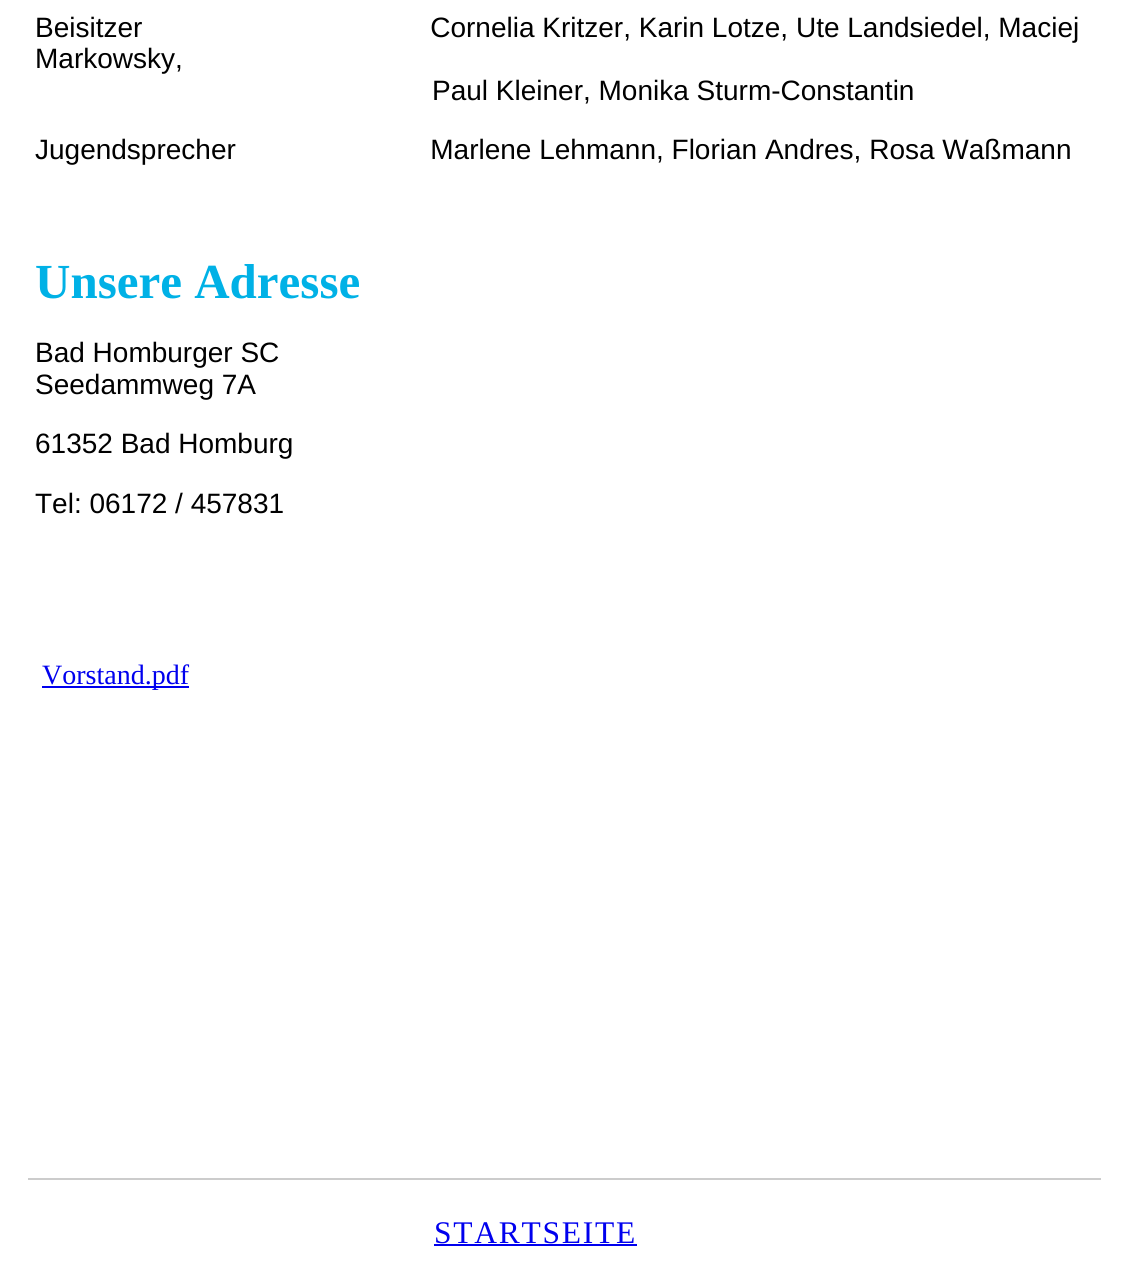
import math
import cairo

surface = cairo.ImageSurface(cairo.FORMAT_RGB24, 1128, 1285)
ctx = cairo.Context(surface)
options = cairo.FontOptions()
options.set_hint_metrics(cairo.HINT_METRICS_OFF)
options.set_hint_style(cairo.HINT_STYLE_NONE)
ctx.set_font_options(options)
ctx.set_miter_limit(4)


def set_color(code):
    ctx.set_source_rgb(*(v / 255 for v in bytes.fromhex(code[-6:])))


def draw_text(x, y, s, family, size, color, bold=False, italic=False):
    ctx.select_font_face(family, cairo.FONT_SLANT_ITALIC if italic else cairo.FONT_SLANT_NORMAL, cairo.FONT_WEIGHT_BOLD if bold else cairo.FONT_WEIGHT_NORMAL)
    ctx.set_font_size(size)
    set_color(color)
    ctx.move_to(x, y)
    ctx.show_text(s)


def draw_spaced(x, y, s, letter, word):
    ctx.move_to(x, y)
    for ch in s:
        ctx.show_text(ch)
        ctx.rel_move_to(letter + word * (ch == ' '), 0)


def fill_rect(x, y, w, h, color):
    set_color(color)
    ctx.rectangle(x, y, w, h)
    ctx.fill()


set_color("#ffffff")
ctx.paint()
draw_text(35, 37, "Beisitzer                                     Cornelia Kritzer, Karin Lotze, Ute Landsiedel, Maciej", "Liberation Sans", 28, "#000000")
draw_text(35, 68, "Markowsky,", "Liberation Sans", 28, "#000000")
draw_text(432, 100, "Paul Kleiner, Monika Sturm-Constantin", "Liberation Sans", 28, "#000000")
draw_text(35, 159, "Jugendsprecher                         Marlene Lehmann, Florian Andres, Rosa Waßmann", "Liberation Sans", 28, "#000000")
draw_text(35, 298, "Unsere Adresse", "Liberation Serif", 49, "#00b1e6", bold=True)
draw_text(35, 362, "Bad Homburger SC", "Liberation Sans", 28, "#000000")
draw_text(35, 394, "Seedammweg 7A", "Liberation Sans", 28, "#000000")
draw_text(35, 453, "61352 Bad Homburg", "Liberation Sans", 28, "#000000")
draw_text(35, 513, "Tel: 06172 / 457831", "Liberation Sans", 28, "#000000")
fill_rect(42, 686, 147, 2, "#0000ee")
draw_text(42, 684, "Vorstand.pdf", "Liberation Serif", 28, "#0000ee")
fill_rect(28, 1178, 1073, 2, "#cccccc")
ctx.set_font_size(31.5)
set_color("#0000ee")
draw_spaced(434, 1243, "STARTSEITE", 1.75, 0)
fill_rect(434, 1244, 203, 2, "#0000ee")
surface.write_to_png("output.png")
